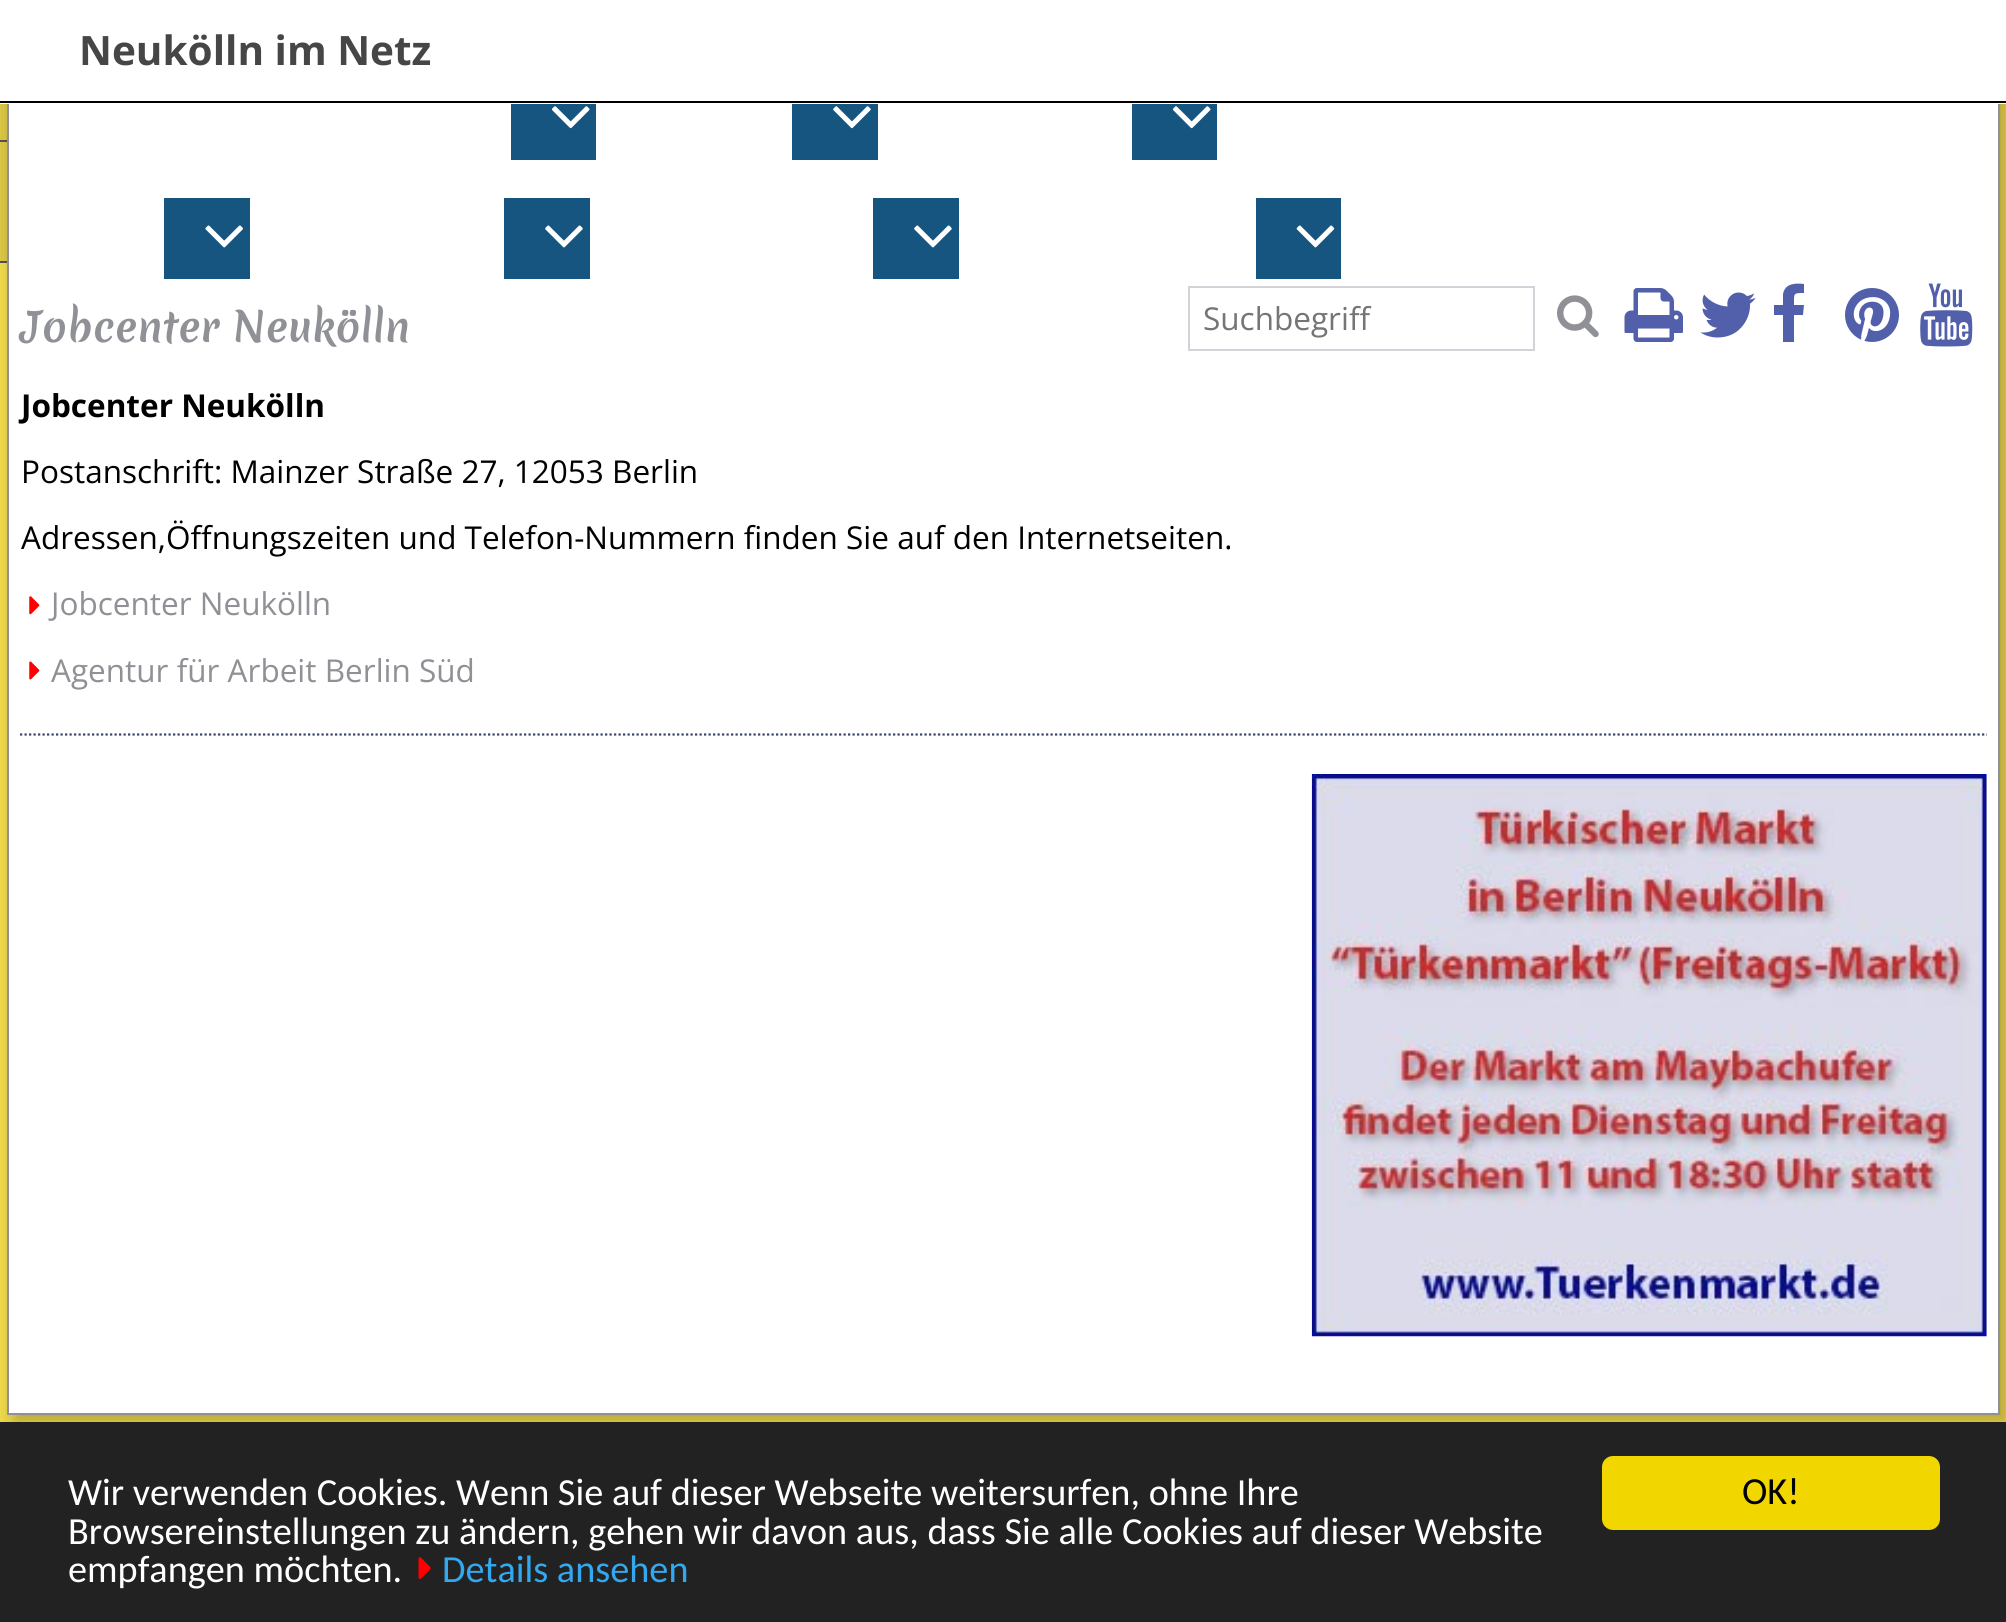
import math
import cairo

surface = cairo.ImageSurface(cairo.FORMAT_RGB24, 2006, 1622)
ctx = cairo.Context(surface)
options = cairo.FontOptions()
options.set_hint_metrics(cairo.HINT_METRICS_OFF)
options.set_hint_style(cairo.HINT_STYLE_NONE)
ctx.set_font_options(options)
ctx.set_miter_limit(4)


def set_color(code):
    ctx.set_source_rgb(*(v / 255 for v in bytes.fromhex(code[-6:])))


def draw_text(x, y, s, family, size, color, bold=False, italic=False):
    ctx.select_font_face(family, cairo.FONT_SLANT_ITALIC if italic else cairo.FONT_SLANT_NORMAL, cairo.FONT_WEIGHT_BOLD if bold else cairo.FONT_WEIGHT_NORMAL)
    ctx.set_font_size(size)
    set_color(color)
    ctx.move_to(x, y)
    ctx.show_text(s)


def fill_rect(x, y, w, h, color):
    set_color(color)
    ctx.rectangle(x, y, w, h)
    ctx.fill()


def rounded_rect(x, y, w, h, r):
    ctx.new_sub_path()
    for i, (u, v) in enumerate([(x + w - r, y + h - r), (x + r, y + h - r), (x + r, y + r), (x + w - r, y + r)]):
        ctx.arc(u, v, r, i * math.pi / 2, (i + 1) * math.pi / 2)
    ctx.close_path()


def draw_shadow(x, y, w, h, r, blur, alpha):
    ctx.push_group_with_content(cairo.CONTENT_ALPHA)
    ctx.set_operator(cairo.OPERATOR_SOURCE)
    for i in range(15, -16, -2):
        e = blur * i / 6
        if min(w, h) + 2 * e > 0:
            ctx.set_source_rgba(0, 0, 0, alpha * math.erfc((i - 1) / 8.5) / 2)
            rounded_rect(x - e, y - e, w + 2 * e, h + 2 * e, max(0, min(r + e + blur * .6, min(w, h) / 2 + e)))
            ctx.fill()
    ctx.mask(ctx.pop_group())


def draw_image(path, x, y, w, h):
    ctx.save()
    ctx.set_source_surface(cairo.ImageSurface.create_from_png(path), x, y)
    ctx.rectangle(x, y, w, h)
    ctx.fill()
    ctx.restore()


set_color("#f5df4d")
ctx.paint()
fill_rect(0, 104, 7, 36, "#e0cb47")
fill_rect(0, 140, 7, 2, "#535353")
fill_rect(0, 142, 7, 119, "#e0cb47")
fill_rect(0, 261, 7, 2, "#535353")
set_color("#000000")
draw_shadow(14, 29, 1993, 1393, 0, 11, 0.3)
fill_rect(9, 104, 1989, 1309, "#ffffff")
ctx.rectangle(8, 24, 1991, 1390)
set_color("#8f9196")
ctx.stroke()
fill_rect(0, 0, 2006, 104, "#ffffff")
fill_rect(0, 101, 2006, 2, "#000000")
draw_text(79, 65, "Neukölln im Netz", "Open Sans", 40.5, "#464646", bold=True)
fill_rect(511, 104, 85, 56, "#16557f")
draw_image("assets/img1.png", 551, 106, 39, 23)
fill_rect(792, 104, 86, 56, "#16557f")
draw_image("assets/img2.png", 833, 106, 38, 23)
fill_rect(1132, 104, 85, 56, "#16557f")
draw_image("assets/img1.png", 1172, 106, 39, 23)
fill_rect(164, 198, 86, 81, "#16557f")
draw_image("assets/img3.png", 205, 225, 38, 23)
fill_rect(504, 198, 86, 81, "#16557f")
draw_image("assets/img4.png", 545, 225, 38, 23)
fill_rect(873, 198, 86, 81, "#16557f")
draw_image("assets/img4.png", 914, 225, 38, 23)
fill_rect(1256, 198, 85, 81, "#16557f")
draw_image("assets/img5.png", 1296, 225, 39, 23)
draw_text(21, 342, "Jobcenter Neukölln", "Merienda", 40.5, "#8f9196", bold=True)
draw_text(21, 417, "Jobcenter Neukölln", "Open Sans", 31.5, "#000000", bold=True)
draw_text(21, 483, "Postanschrift: Mainzer Straße 27, 12053 Berlin", "Open Sans", 31.5, "#000000")
draw_text(21, 549, "Adressen,Öffnungszeiten und Telefon-Nummern finden Sie auf den Internetseiten.", "Open Sans", 31.5, "#000000")
draw_image("assets/img6.png", 29, 596, 11, 19)
draw_text(51, 615, "Jobcenter Neukölln", "Open Sans", 31.5, "#8f9196")
draw_image("assets/img7.png", 29, 661, 11, 19)
draw_text(51, 682, "Agentur für Arbeit Berlin Süd", "Open Sans", 31.5, "#8f9196")
ctx.new_path()
ctx.move_to(20, 734.5)
ctx.line_to(1987, 734.5)
set_color("#3a446d")
ctx.set_line_width(2.2)
ctx.set_dash([2.25, 2.25])
ctx.stroke()
draw_image("assets/img8.png", 1311, 774, 676, 563)
ctx.rectangle(1189, 287, 345, 63)
set_color("#d1d3d8")
ctx.set_line_width(2)
ctx.set_dash([])
ctx.stroke()
draw_text(1203, 330, "Suchbegriff", "Open Sans", 31.5, "#757575")
draw_image("assets/img9.png", 1557, 295, 42, 43)
draw_image("assets/img10.png", 1624, 288, 59, 54)
draw_image("assets/img11.png", 1700, 292, 56, 46)
set_color("#5260ab")
ctx.new_path()
ctx.move_to(1804, 284)
ctx.line_to(1804, 293)
ctx.curve_to(1793, 293, 1794, 293, 1794, 305)
ctx.line_to(1804, 305)
ctx.line_to(1803, 315)
ctx.line_to(1794, 315)
ctx.line_to(1794, 342)
ctx.line_to(1783, 342)
ctx.line_to(1783, 315)
ctx.line_to(1774, 315)
ctx.line_to(1774, 305)
ctx.line_to(1783, 305)
ctx.line_to(1783, 294)
ctx.curve_to(1785, 283, 1796, 283, 1804, 284)
ctx.close_path()
ctx.fill()
draw_image("assets/img12.png", 1845, 288, 54, 54)
draw_image("assets/img13.png", 1920, 283, 53, 64)
fill_rect(0, 1422, 2006, 200, "#222222")
draw_text(68, 1505, "Wir verwenden Cookies. Wenn Sie auf dieser Webseite weitersurfen, ohne Ihre", "Carlito", 38.25, "#ffffff")
draw_text(68, 1544, "Browsereinstellungen zu ändern, gehen wir davon aus, dass Sie alle Cookies auf dieser Website", "Carlito", 38.25, "#ffffff")
draw_text(68, 1582, "empfangen möchten.", "Carlito", 38.25, "#ffffff")
draw_image("assets/img14.png", 418, 1557, 13, 22)
draw_text(442, 1582, "Details ansehen", "Carlito", 38.25, "#31a8f0")
set_color("#f1d600")
rounded_rect(1602, 1456, 338, 74, 11)
ctx.fill()
draw_text(1742, 1504, "OK!", "Carlito", 38.25, "#000000")
surface.write_to_png("output.png")
